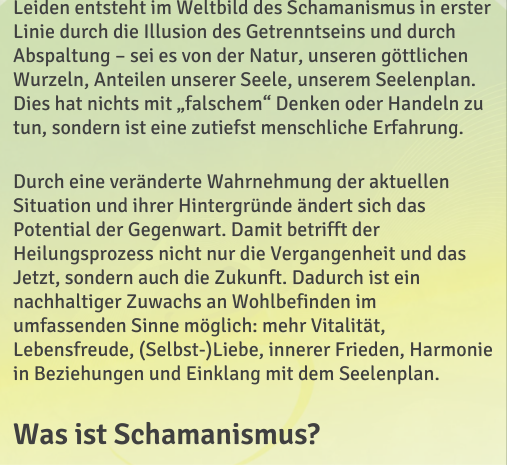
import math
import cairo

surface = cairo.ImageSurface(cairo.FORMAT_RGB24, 507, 465)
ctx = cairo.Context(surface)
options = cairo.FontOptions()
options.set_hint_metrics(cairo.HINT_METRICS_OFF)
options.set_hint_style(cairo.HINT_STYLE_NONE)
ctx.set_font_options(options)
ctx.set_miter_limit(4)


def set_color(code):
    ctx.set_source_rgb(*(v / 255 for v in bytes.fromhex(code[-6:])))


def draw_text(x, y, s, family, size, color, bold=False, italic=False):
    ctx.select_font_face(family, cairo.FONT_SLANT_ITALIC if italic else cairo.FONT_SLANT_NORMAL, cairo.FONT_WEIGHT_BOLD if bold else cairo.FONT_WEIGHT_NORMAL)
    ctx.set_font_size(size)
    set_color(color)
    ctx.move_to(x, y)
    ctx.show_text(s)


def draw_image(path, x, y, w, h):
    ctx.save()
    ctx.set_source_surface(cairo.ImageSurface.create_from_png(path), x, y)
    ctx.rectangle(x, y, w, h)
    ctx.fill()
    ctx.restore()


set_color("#ffffff")
ctx.paint()
draw_image("assets/img1.png", 0, 0, 507, 465)
ctx.set_source_rgba(0.118, 0.196, 0.118, 0.2)
ctx.new_path()
ctx.move_to(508, -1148)
ctx.line_to(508, 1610)
ctx.line_to(506, 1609)
ctx.line_to(506, -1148)
ctx.close_path()
ctx.fill()
draw_text(13, 14, "Leiden entsteht im Weltbild des Schamanismus in erster", "Signika", 20, "#404040")
draw_text(13, 38, "Linie durch die Illusion des Getrenntseins und durch", "Signika", 20, "#404040")
draw_text(13, 62, "Abspaltung – sei es von der Natur, unseren göttlichen", "Signika", 20, "#404040")
draw_text(13, 86, "Wurzeln, Anteilen unserer Seele, unserem Seelenplan.", "Signika", 20, "#404040")
draw_text(13, 110, "Dies hat nichts mit „falschem“ Denken oder Handeln zu", "Signika", 20, "#404040")
draw_text(13, 134, "tun, sondern ist eine zutiefst menschliche Erfahrung.", "Signika", 20, "#404040")
draw_text(13, 188, "Durch eine veränderte Wahrnehmung der aktuellen", "Signika", 20, "#404040")
draw_text(13, 212, "Situation und ihrer Hintergründe ändert sich das", "Signika", 20, "#404040")
draw_text(13, 236, "Potential der Gegenwart. Damit betrifft der", "Signika", 20, "#404040")
draw_text(13, 260, "Heilungsprozess nicht nur die Vergangenheit und das", "Signika", 20, "#404040")
draw_text(13, 284, "Jetzt, sondern auch die Zukunft. Dadurch ist ein", "Signika", 20, "#404040")
draw_text(13, 308, "nachhaltiger Zuwachs an Wohlbefinden im", "Signika", 20, "#404040")
draw_text(13, 332, "umfassenden Sinne möglich: mehr Vitalität,", "Signika", 20, "#404040")
draw_text(13, 356, "Lebensfreude, (Selbst-)Liebe, innerer Frieden, Harmonie", "Signika", 20, "#404040")
draw_text(13, 380, "in Beziehungen und Einklang mit dem Seelenplan.", "Signika", 20, "#404040")
draw_text(13, 444, "Was ist Schamanismus?", "Signika SemiBold", 30, "#404040")
surface.write_to_png("output.png")
